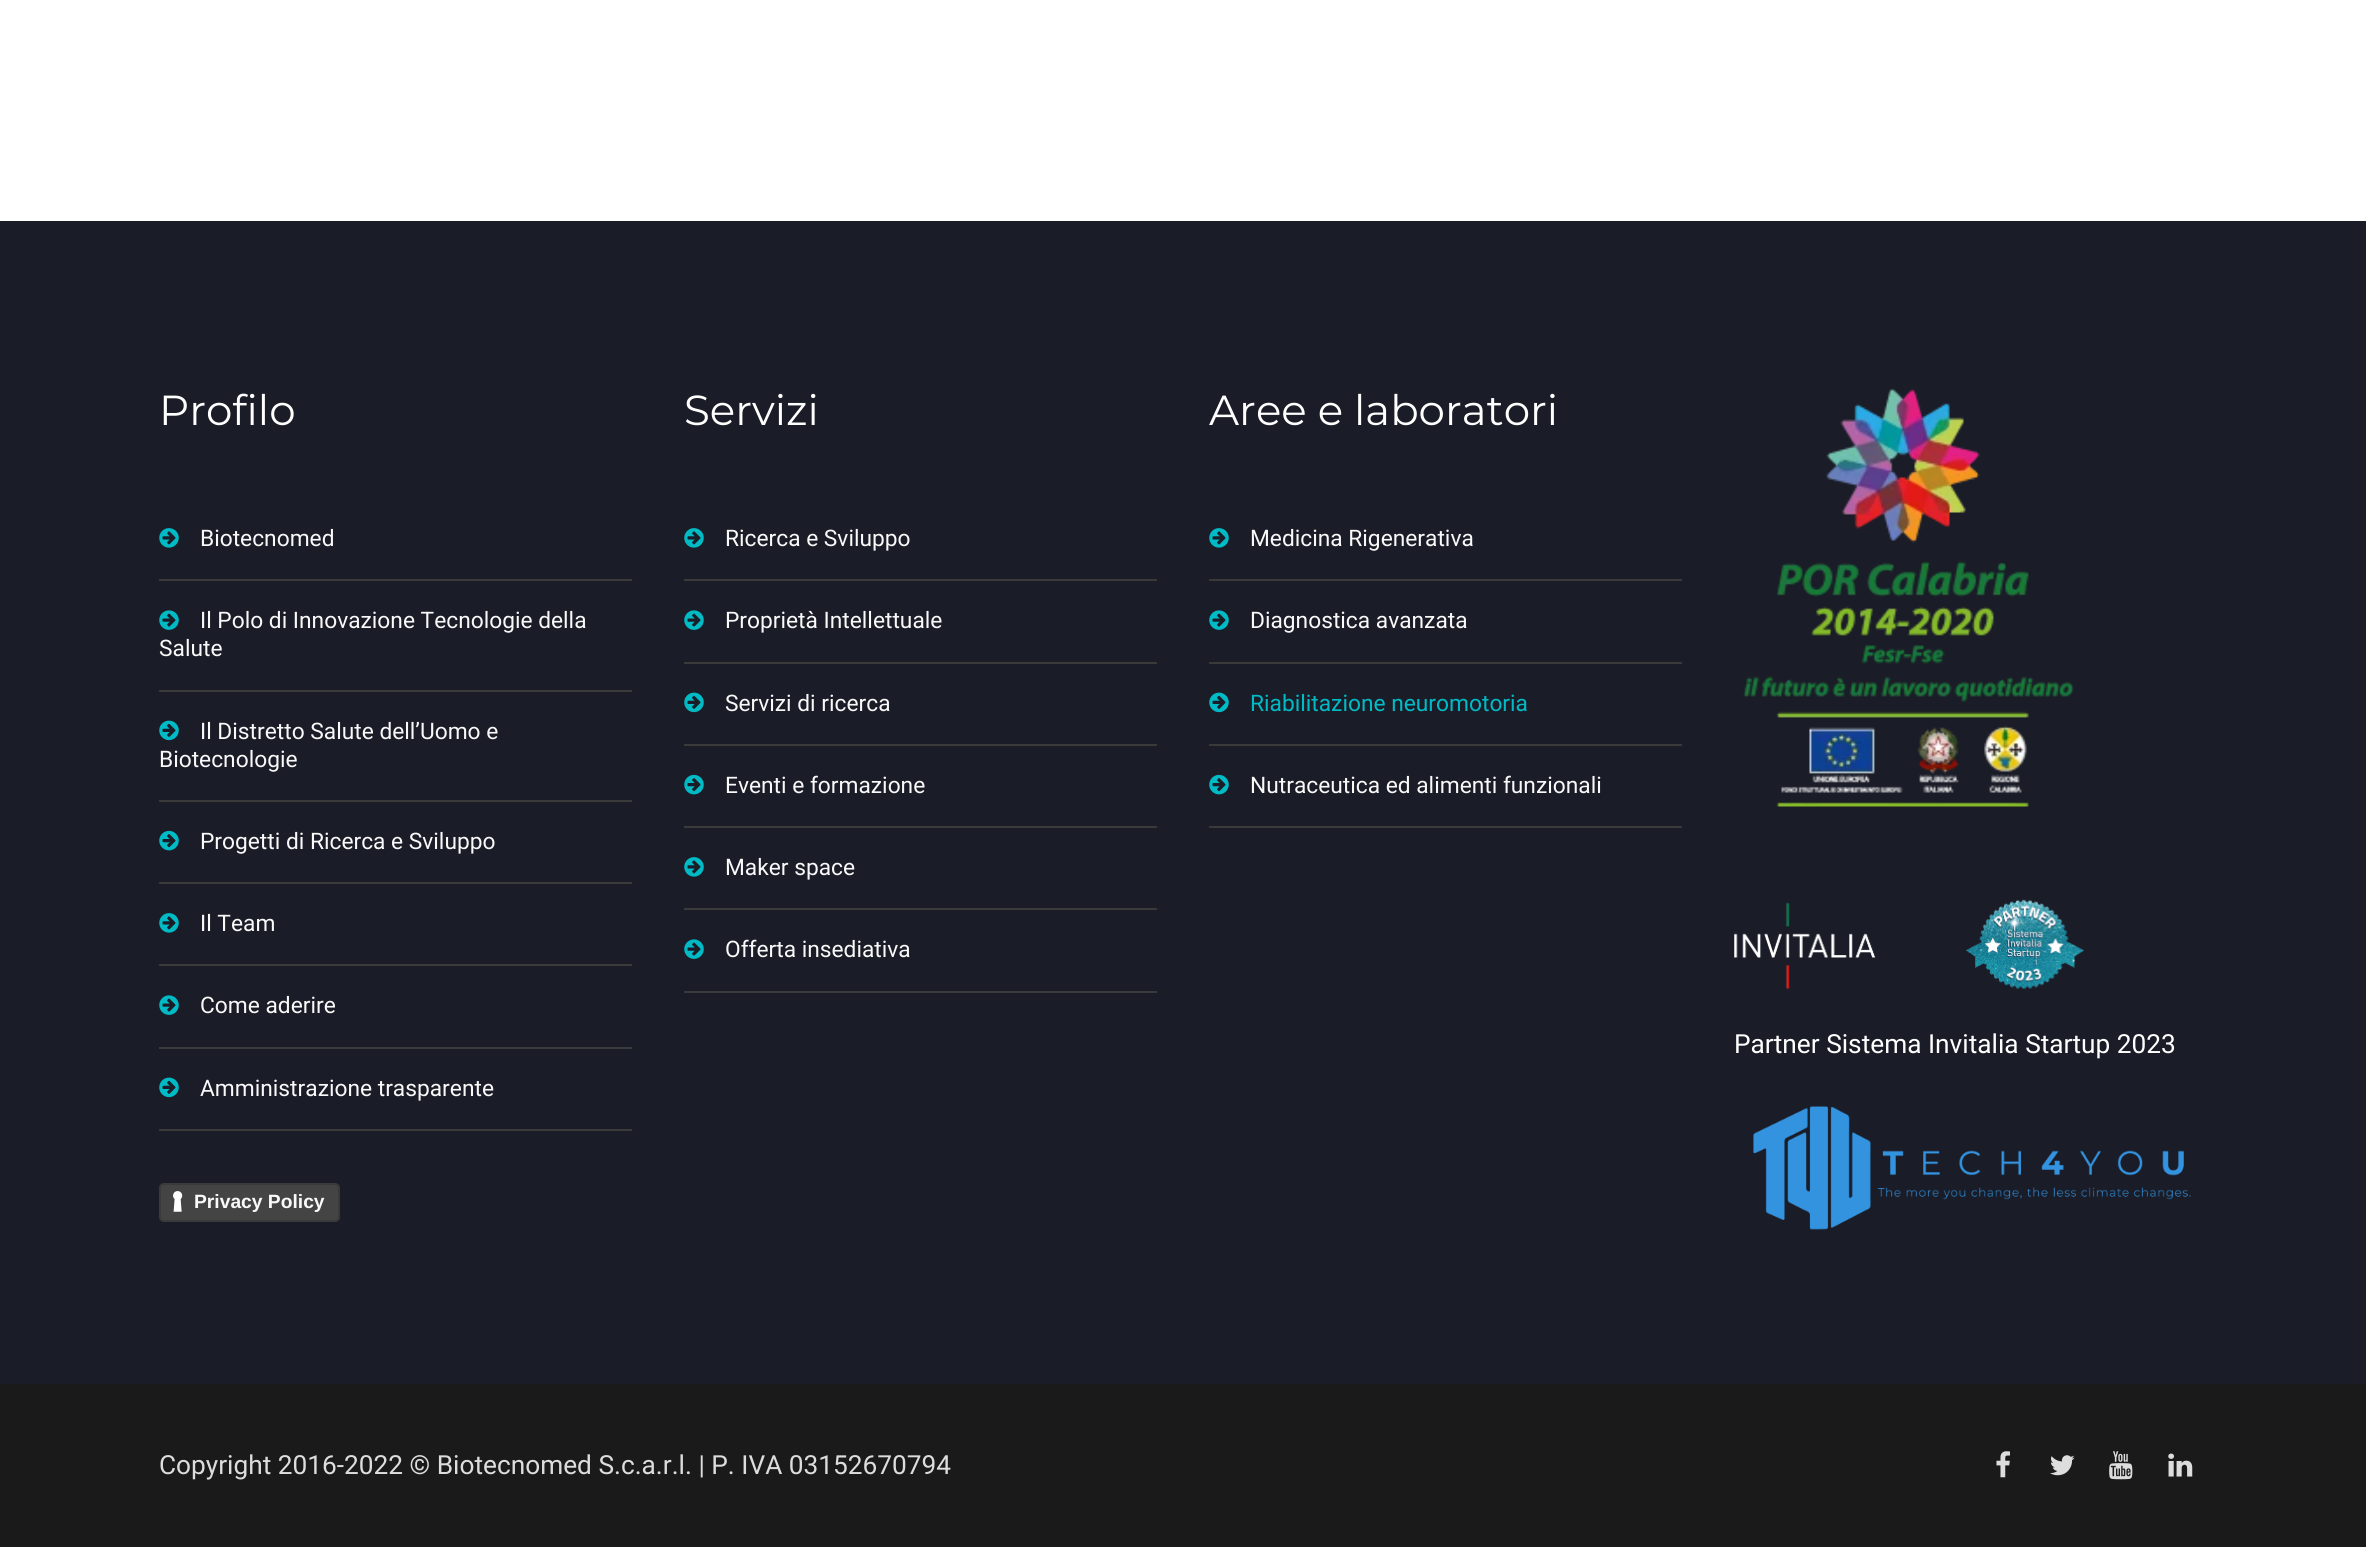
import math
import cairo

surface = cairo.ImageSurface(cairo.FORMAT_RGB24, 2366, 1547)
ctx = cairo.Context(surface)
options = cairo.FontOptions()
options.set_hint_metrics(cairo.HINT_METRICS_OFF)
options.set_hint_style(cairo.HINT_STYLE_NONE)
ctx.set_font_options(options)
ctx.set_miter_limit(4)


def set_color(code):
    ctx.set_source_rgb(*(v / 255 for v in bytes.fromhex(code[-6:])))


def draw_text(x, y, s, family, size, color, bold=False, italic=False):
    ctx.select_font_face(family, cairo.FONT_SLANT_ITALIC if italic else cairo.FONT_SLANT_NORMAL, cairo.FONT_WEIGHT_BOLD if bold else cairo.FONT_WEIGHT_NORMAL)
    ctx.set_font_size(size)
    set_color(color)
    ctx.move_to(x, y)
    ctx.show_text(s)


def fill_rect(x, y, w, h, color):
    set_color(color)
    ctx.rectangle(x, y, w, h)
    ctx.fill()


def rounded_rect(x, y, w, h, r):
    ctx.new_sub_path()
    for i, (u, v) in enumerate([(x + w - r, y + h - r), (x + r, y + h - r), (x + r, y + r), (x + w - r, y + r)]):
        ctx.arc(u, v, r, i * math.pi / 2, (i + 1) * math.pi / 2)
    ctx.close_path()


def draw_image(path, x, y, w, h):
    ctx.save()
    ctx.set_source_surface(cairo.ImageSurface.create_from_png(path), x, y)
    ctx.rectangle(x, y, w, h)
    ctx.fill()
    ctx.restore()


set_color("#ffffff")
ctx.paint()
fill_rect(0, 221, 2366, 1163, "#1a1c27")
draw_text(159, 425, "Profilo", "Montserrat", 42, "#ffffff")
fill_rect(159, 579, 473, 2, "#3a3a3a")
draw_image("assets/img1.png", 159, 528, 20, 20)
draw_text(200, 546, "Biotecnomed", "Roboto", 22.75, "#f9f9f9")
fill_rect(159, 690, 473, 2, "#3a3a3a")
draw_image("assets/img2.png", 159, 610, 20, 20)
draw_text(200, 628, "Il Polo di Innovazione Tecnologie della", "Roboto", 22.75, "#f9f9f9")
draw_text(159, 656, "Salute", "Roboto", 22.75, "#f9f9f9")
fill_rect(159, 800, 473, 2, "#3a3a3a")
draw_image("assets/img3.png", 159, 720, 20, 21)
draw_text(200, 739, "Il Distretto Salute dell’Uomo e", "Roboto", 22.75, "#f9f9f9")
draw_text(159, 767, "Biotecnologie", "Roboto", 22.75, "#f9f9f9")
fill_rect(159, 882, 473, 2, "#3a3a3a")
draw_image("assets/img4.png", 159, 830, 20, 21)
draw_text(200, 849, "Progetti di Ricerca e Sviluppo", "Roboto", 22.75, "#f9f9f9")
fill_rect(159, 964, 473, 2, "#3a3a3a")
draw_image("assets/img1.png", 159, 913, 20, 20)
draw_text(200, 931, "Il Team", "Roboto", 22.75, "#f9f9f9")
fill_rect(159, 1047, 473, 2, "#3a3a3a")
draw_image("assets/img2.png", 159, 995, 20, 20)
draw_text(200, 1013, "Come aderire", "Roboto", 22.75, "#f9f9f9")
fill_rect(159, 1129, 473, 2, "#3a3a3a")
draw_image("assets/img3.png", 159, 1077, 20, 21)
draw_text(200, 1096, "Amministrazione trasparente", "Roboto", 22.75, "#f9f9f9")
set_color("#444444")
rounded_rect(159, 1183, 181, 39, 5)
ctx.fill()
draw_image("assets/img5.png", 173, 1191, 10, 21)
rounded_rect(160, 1184, 179, 37, 4)
ctx.set_source_rgba(0, 0, 0, 0.15)
ctx.stroke()
draw_text(194, 1208, "Privacy Policy", "Liberation Sans", 19.25, "#f9f9f9", bold=True)
draw_text(684, 425, "Servizi", "Montserrat", 42, "#ffffff")
fill_rect(684, 579, 473, 2, "#3a3a3a")
draw_image("assets/img1.png", 684, 528, 20, 20)
draw_text(725, 546, "Ricerca e Sviluppo", "Roboto", 22.75, "#f9f9f9")
fill_rect(684, 662, 473, 2, "#3a3a3a")
draw_image("assets/img2.png", 684, 610, 20, 20)
draw_text(725, 628, "Proprietà Intellettuale", "Roboto", 22.75, "#f9f9f9")
fill_rect(684, 744, 473, 2, "#3a3a3a")
draw_image("assets/img3.png", 684, 692, 20, 21)
draw_text(725, 711, "Servizi di ricerca", "Roboto", 22.75, "#f9f9f9")
fill_rect(684, 826, 473, 2, "#3a3a3a")
draw_image("assets/img4.png", 684, 774, 20, 21)
draw_text(725, 793, "Eventi e formazione", "Roboto", 22.75, "#f9f9f9")
fill_rect(684, 908, 473, 2, "#3a3a3a")
draw_image("assets/img1.png", 684, 857, 20, 20)
draw_text(725, 875, "Maker space", "Roboto", 22.75, "#f9f9f9")
fill_rect(684, 991, 473, 2, "#3a3a3a")
draw_image("assets/img2.png", 684, 939, 20, 20)
draw_text(725, 957, "Offerta insediativa", "Roboto", 22.75, "#f9f9f9")
draw_text(1209, 425, "Aree e laboratori", "Montserrat", 42, "#ffffff")
fill_rect(1209, 579, 473, 2, "#3a3a3a")
draw_image("assets/img1.png", 1209, 528, 20, 20)
draw_text(1250, 546, "Medicina Rigenerativa", "Roboto", 22.75, "#f9f9f9")
fill_rect(1209, 662, 473, 2, "#3a3a3a")
draw_image("assets/img2.png", 1209, 610, 20, 20)
draw_text(1250, 628, "Diagnostica avanzata", "Roboto", 22.75, "#f9f9f9")
fill_rect(1209, 744, 473, 2, "#3a3a3a")
draw_image("assets/img3.png", 1209, 692, 20, 21)
draw_text(1250, 711, "Riabilitazione neuromotoria", "Roboto", 22.75, "#00bbc5")
fill_rect(1209, 826, 473, 2, "#3a3a3a")
draw_image("assets/img4.png", 1209, 774, 20, 21)
draw_text(1250, 793, "Nutraceutica ed alimenti funzionali", "Roboto", 22.75, "#f9f9f9")
draw_image("assets/img6.png", 1743, 388, 331, 419)
draw_image("assets/img7.png", 1734, 899, 351, 90)
draw_text(1734, 1053, "Partner Sistema Invitalia Startup 2023", "Roboto", 26.25, "#ffffff")
draw_image("assets/img8.png", 1753, 1106, 438, 124)
fill_rect(0, 1384, 2366, 163, "#1a1a1a")
draw_text(159, 1474, "Copyright 2016-2022 © Biotecnomed S.c.a.r.l. | P. IVA 03152670794", "Roboto", 26.25, "#dddddd")
draw_image("assets/img9.png", 1996, 1451, 14, 27)
draw_image("assets/img10.png", 2050, 1455, 25, 21)
draw_image("assets/img11.png", 2109, 1451, 24, 29)
draw_image("assets/img12.png", 2168, 1453, 25, 24)
surface.write_to_png("output.png")
